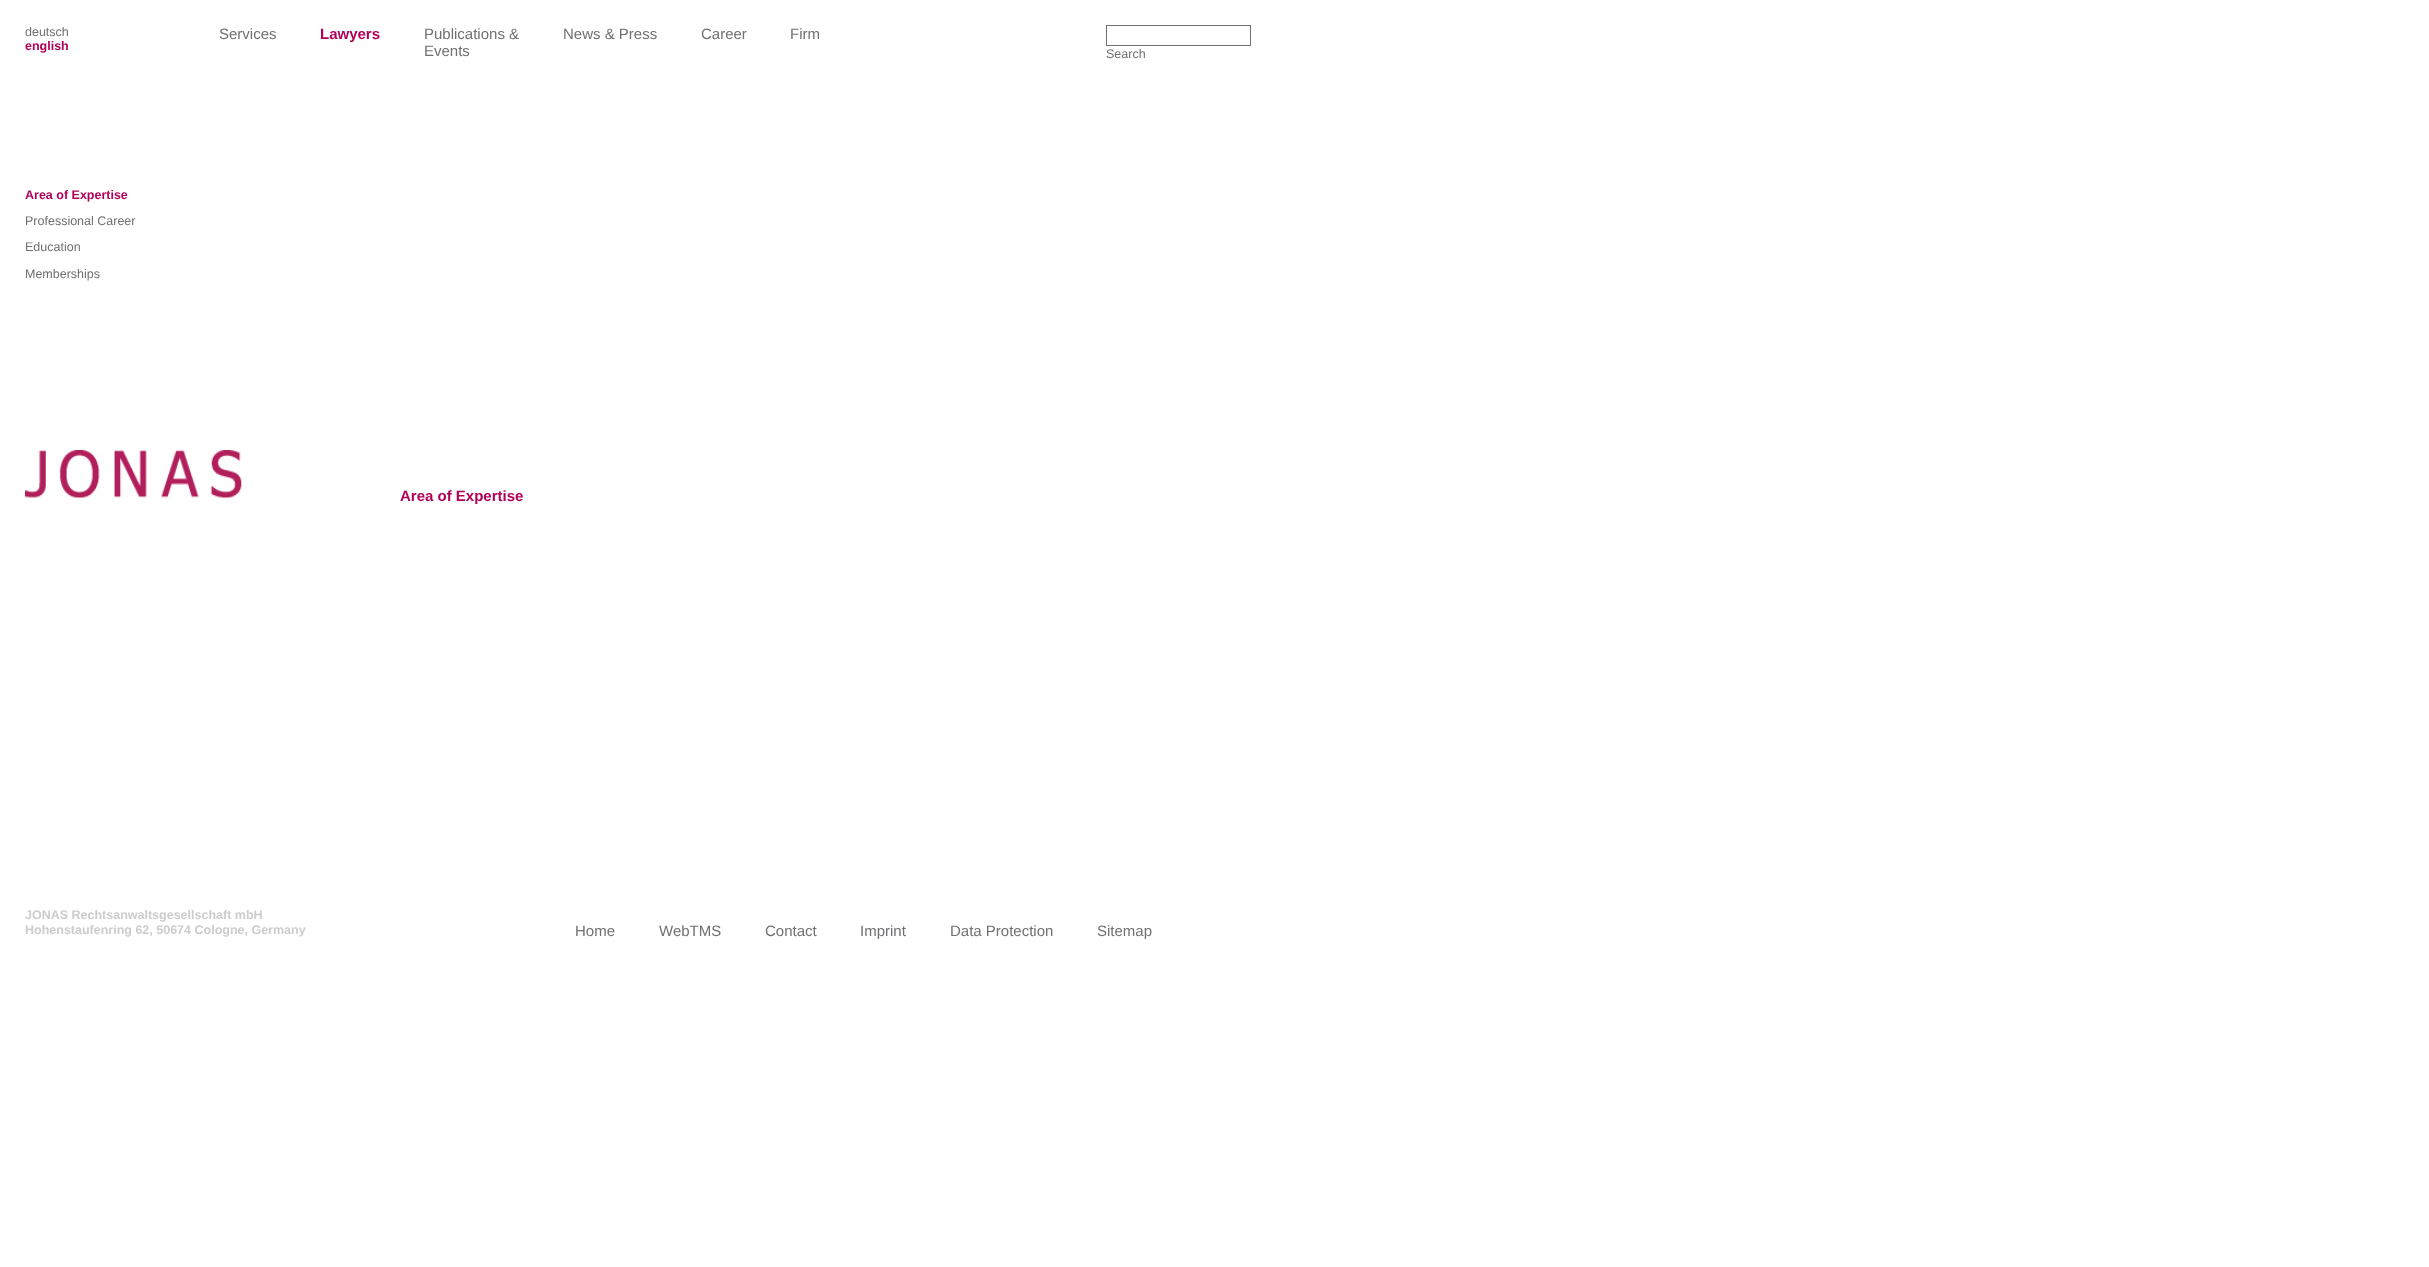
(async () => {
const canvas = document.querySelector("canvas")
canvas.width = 2429
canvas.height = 1267
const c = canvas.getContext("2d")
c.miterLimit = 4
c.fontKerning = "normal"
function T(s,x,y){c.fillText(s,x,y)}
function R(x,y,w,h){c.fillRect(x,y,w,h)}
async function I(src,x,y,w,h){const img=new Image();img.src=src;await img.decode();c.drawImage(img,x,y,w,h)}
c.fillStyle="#fff"
R(0,0,2429,1267)
c.font="12.5px Liberation Sans"
c.fillStyle="#707072"
T("deutsch",25,36)
c.font="bold 12.5px Liberation Sans"
c.fillStyle="#b00057"
T("english",25,50)
c.font="15px Liberation Sans"
c.fillStyle="#707072"
T("Services",219,39)
c.font="bold 15px Liberation Sans"
c.fillStyle="#b00057"
T("Lawyers",320,39)
c.font="15px Liberation Sans"
c.fillStyle="#707072"
T("Publications &",424,39)
T("Events",424,56)
T("News & Press",563,39)
T("Career",701,39)
T("Firm",790,39)
c.strokeStyle="#707072"
c.strokeRect(1106.5,25.5,144,20)
c.font="12.5px Liberation Sans"
T("Search",1106,58)
c.font="bold 12.5px Liberation Sans"
c.fillStyle="#b00057"
T("Area of Expertise",25,199)
c.font="12.5px Liberation Sans"
c.fillStyle="#707072"
T("Professional Career",25,225)
T("Education",25,251)
T("Memberships",25,278)
await I("1.png",25,450,217,48)
c.font="bold 15px Liberation Sans"
c.fillStyle="#b00057"
T("Area of Expertise",400,501)
c.font="bold 12.5px Liberation Sans"
c.fillStyle="#ccc"
T("JONAS Rechtsanwaltsgesellschaft mbH",25,919)
T("Hohenstaufenring 62, 50674 Cologne, Germany",25,934)
c.font="15px Liberation Sans"
c.fillStyle="#707072"
T("Home",575,936)
T("WebTMS",659,936)
T("Contact",765,936)
T("Imprint",860,936)
T("Data Protection",950,936)
T("Sitemap",1097,936)
})()
